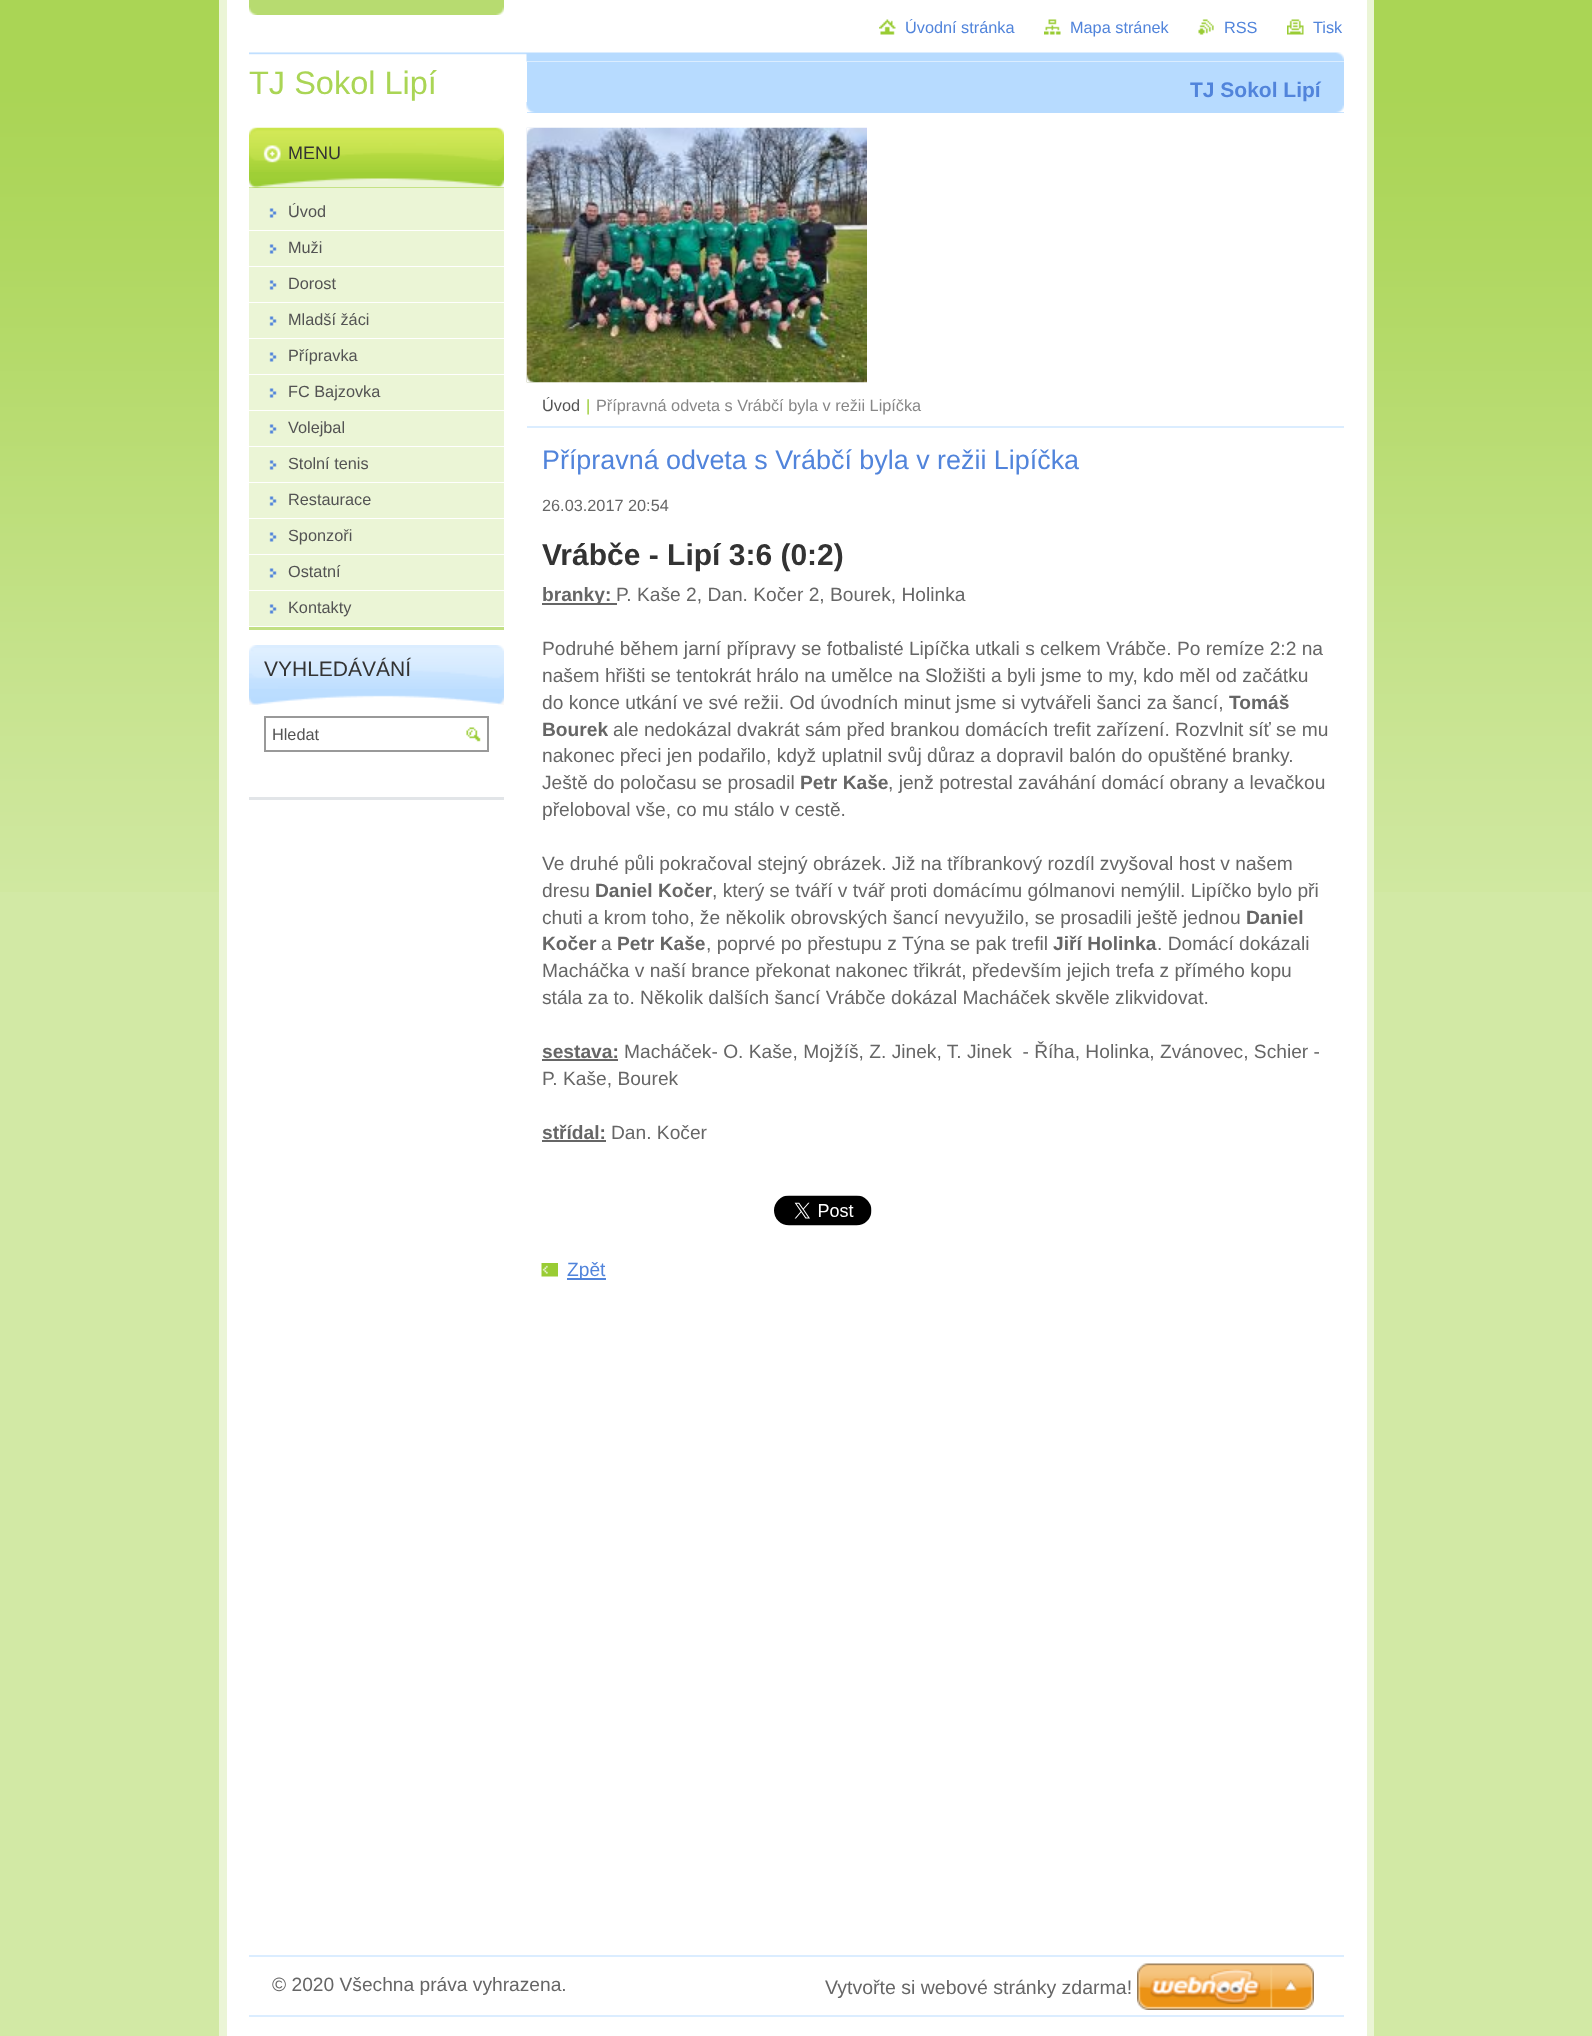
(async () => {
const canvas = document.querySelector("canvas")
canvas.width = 1592
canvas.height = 2036
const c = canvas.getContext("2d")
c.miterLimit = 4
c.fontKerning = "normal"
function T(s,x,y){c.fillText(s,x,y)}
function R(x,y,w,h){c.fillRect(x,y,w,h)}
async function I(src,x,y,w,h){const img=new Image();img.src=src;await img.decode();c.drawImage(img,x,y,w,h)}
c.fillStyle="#d2e9a5"
R(0,0,1592,2036)
await I("1.png",0,0,1592,892)
c.fillStyle="#fff"
R(227,0,1140,2036)
await I("2.png",249,0,255,15)
c.fillStyle="#ebf5d6"
R(1367,0,7,2036)
R(219,0,8,2036)
await I("3.png",879,19,17,16)
c.font="16.3px Liberation Sans"
c.fillStyle="#5184db"
T("Úvodní stránka",905,33)
await I("4.png",1044,19,17,16)
T("Mapa stránek",1070,33)
await I("5.png",1198,19,16,16)
T("RSS",1224,33)
await I("6.png",1287,19,17,16)
T("Tisk",1313,33)
await I("7.png",249,52,1095,10)
c.font="32.5px Liberation Sans"
c.fillStyle="#aad555"
T("TJ Sokol Lipí",249,94)
c.fillStyle="#b7dbff"
R(527,62,817,51)
await I("8.png",526,102,818,11)
c.font="bold 21px Liberation Sans"
c.fillStyle="#5184db"
T("TJ Sokol Lipí",1190,97)
c.fillStyle="#c2e084"
R(249,627,255,3)
c.fillStyle="#ebf5d6"
R(249,188,255,42)
c.fillStyle="#9fcf36"
R(249,172,255,16)
await I("9.png",249,127,255,45)
await I("10.png",249,178,255,10)
c.font="18px Liberation Sans"
c.fillStyle="#333"
T("MENU",288,159)
await I("11.png",269,208,8,10)
c.font="16.3px Liberation Sans"
c.fillStyle="#535353"
T("Úvod",288,217)
c.fillStyle="#ebf5d6"
R(249,231,255,35)
await I("11.png",269,244,8,10)
c.fillStyle="#535353"
T("Muži",288,253)
c.fillStyle="#ebf5d6"
R(249,267,255,35)
await I("11.png",269,280,8,10)
c.fillStyle="#535353"
T("Dorost",288,289)
c.fillStyle="#ebf5d6"
R(249,303,255,35)
await I("11.png",269,316,8,10)
c.fillStyle="#535353"
T("Mladší žáci",288,325)
c.fillStyle="#ebf5d6"
R(249,339,255,35)
await I("11.png",269,352,8,10)
c.fillStyle="#535353"
T("Přípravka",288,361)
c.fillStyle="#ebf5d6"
R(249,375,255,35)
await I("11.png",269,388,8,10)
c.fillStyle="#535353"
T("FC Bajzovka",288,397)
c.fillStyle="#ebf5d6"
R(249,411,255,35)
await I("11.png",269,424,8,10)
c.fillStyle="#535353"
T("Volejbal",288,433)
c.fillStyle="#ebf5d6"
R(249,447,255,35)
await I("11.png",269,460,8,10)
c.fillStyle="#535353"
T("Stolní tenis",288,469)
c.fillStyle="#ebf5d6"
R(249,483,255,35)
await I("11.png",269,496,8,10)
c.fillStyle="#535353"
T("Restaurace",288,505)
c.fillStyle="#ebf5d6"
R(249,519,255,35)
await I("11.png",269,532,8,10)
c.fillStyle="#535353"
T("Sponzoři",288,541)
c.fillStyle="#ebf5d6"
R(249,555,255,35)
await I("11.png",269,568,8,10)
c.fillStyle="#535353"
T("Ostatní",288,577)
c.fillStyle="#ebf5d6"
R(249,591,255,35)
await I("11.png",269,604,8,10)
c.fillStyle="#535353"
T("Kontakty",288,613)
c.fillStyle="#bdf"
R(249,689,255,8)
await I("12.png",249,645,255,44)
await I("13.png",249,695,255,10)
c.font="21px Liberation Sans"
c.fillStyle="#333"
T("VYHLEDÁVÁNÍ",264,676)
c.strokeStyle="#999"
c.lineWidth=2
c.strokeRect(265,717,223,34)
c.font="16.3px Liberation Sans"
c.fillStyle="#535353"
T("Hledat",272,740)
await I("14.png",466,727,15,15)
c.fillStyle="#e2e5e8"
R(249,797,255,3)
await I("15.png",526,127,341,256)
await I("16.png",526,127,9,256)
c.fillStyle="#dbedff"
R(527,426,817,2)
c.fillStyle="#535353"
T("Úvod",542,411)
c.fillStyle="#9c3"
T("|",586,411)
c.fillStyle="#878787"
T("Přípravná odveta s Vrábčí byla v režii Lipíčka",596,411)
c.font="26.9px Liberation Sans"
c.fillStyle="#5184db"
T("Přípravná odveta s Vrábčí byla v režii Lipíčka",542,469)
c.font="16.3px Liberation Sans"
c.fillStyle="#666"
T("26.03.2017 20:54",542,511)
c.font="bold 30px Liberation Sans"
c.fillStyle="#333"
T("Vrábče - Lipí 3:6 (0:2)",542,565)
c.fillStyle="#666"
R(542,603,75,2)
c.font="bold 19.2px Liberation Sans"
T("branky:",542,601)
c.font="19.2px Liberation Sans"
T("P. Kaše 2, Dan. Kočer 2, Bourek, Holinka",616,601)
T("Podruhé během jarní přípravy se fotbalisté Lipíčka utkali s celkem Vrábče. Po remíze 2:2 na",542,655)
T("našem hřišti se tentokrát hrálo na umělce na Složišti a byli jsme to my, kdo měl od začátku",542,682)
T("do konce utkání ve své režii. Od úvodních minut jsme si vytvářeli šanci za šancí,",542,709)
c.font="bold 19.2px Liberation Sans"
T("Tomáš",1229,709)
T("Bourek",542,736)
c.font="19.2px Liberation Sans"
T("ale nedokázal dvakrát sám před brankou domácích trefit zařízení. Rozvlnit síť se mu",613,736)
T("nakonec přeci jen podařilo, když uplatnil svůj důraz a dopravil balón do opuštěné branky.",542,762)
T("Ještě do poločasu se prosadil",542,789)
c.font="bold 19.2px Liberation Sans"
T("Petr Kaše",800,789)
c.font="19.2px Liberation Sans"
T(", jenž potrestal zaváhání domácí obrany a levačkou",888,789)
T("přeloboval vše, co mu stálo v cestě.",542,816)
T("Ve druhé půli pokračoval stejný obrázek. Již na tříbrankový rozdíl zvyšoval host v našem",542,870)
T("dresu",542,897)
c.font="bold 19.2px Liberation Sans"
T("Daniel Kočer",595,897)
c.font="19.2px Liberation Sans"
T(", který se tváří v tvář proti domácímu gólmanovi nemýlil. Lipíčko bylo při",712,897)
T("chuti a krom toho, že několik obrovských šancí nevyužilo, se prosadili ještě jednou",542,924)
c.font="bold 19.2px Liberation Sans"
T("Daniel",1246,924)
T("Kočer",542,950)
c.font="19.2px Liberation Sans"
T("a",601,950)
c.font="bold 19.2px Liberation Sans"
T("Petr Kaše",617,950)
c.font="19.2px Liberation Sans"
T(", poprvé po přestupu z Týna se pak trefil",706,950)
c.font="bold 19.2px Liberation Sans"
T("Jiří Holinka",1053,950)
c.font="19.2px Liberation Sans"
T(". Domácí dokázali",1157,950)
T("Macháčka v naší brance překonat nakonec třikrát, především jejich trefa z přímého kopu",542,977)
T("stála za to. Několik dalších šancí Vrábče dokázal Macháček skvěle zlikvidovat.",542,1004)
c.font="bold 19.2px Liberation Sans"
T("sestava:",542,1058)
R(542,1059,76,2)
c.font="19.2px Liberation Sans"
T("Macháček- O. Kaše, Mojžíš, Z. Jinek, T. Jinek  - Říha, Holinka, Zvánovec, Schier -",624,1058)
T("P. Kaše, Bourek",542,1085)
c.font="bold 19.2px Liberation Sans"
T("střídal:",542,1139)
R(542,1140,64,2)
c.font="19.2px Liberation Sans"
T("Dan. Kočer",611,1139)
await I("17.png",774,1195,98,31)
await I("18.png",541,1263,17,14)
c.fillStyle="#5184db"
R(567,1278,39,2)
T("Zpět",567,1276)
c.fillStyle="#dbedff"
R(249,1955,1095,2)
R(249,2015,1095,2)
c.fillStyle="#666"
T("© 2020 Všechna práva vyhrazena.",272,1991)
c.font="19.5px Liberation Sans"
T("Vytvořte si webové stránky zdarma!",825,1994)
await I("19.png",1137,1963,177,47)
})()
